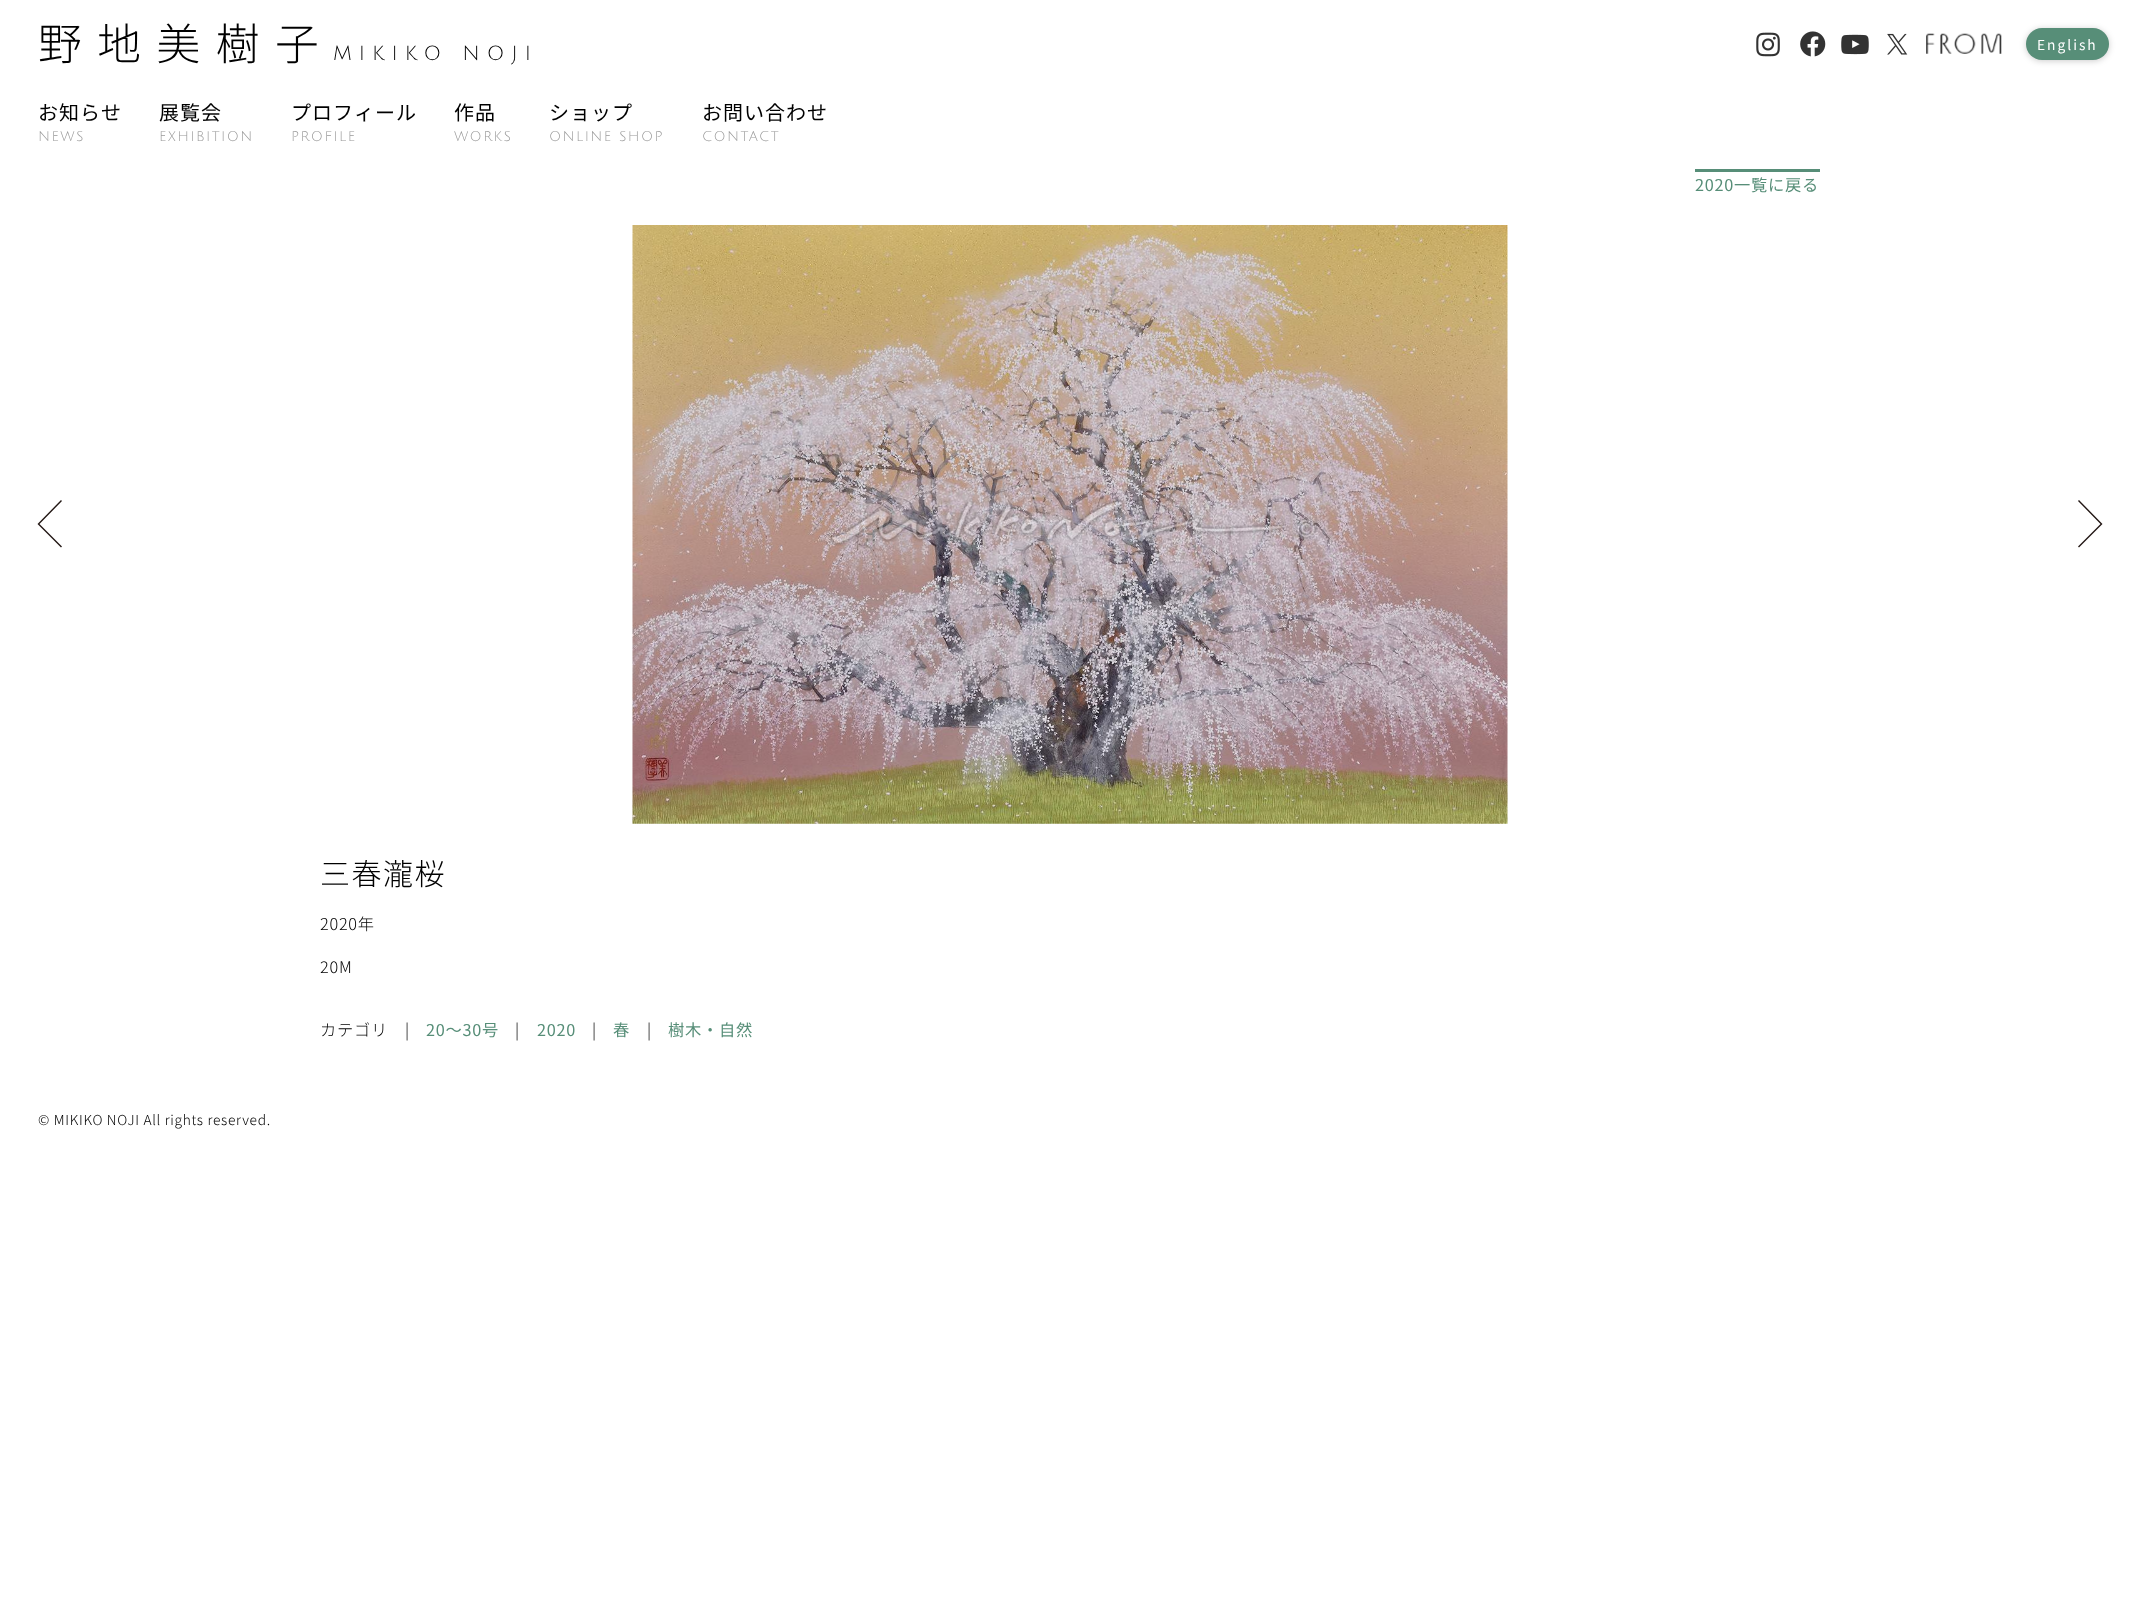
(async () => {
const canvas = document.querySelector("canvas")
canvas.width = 2140
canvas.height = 1622
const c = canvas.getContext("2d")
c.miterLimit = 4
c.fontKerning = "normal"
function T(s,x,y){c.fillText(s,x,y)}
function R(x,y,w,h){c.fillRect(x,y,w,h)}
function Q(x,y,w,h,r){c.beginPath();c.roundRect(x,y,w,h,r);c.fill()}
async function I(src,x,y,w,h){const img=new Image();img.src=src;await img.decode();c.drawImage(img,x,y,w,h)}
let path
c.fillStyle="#fff"
R(0,0,2140,1622)
c.letterSpacing="15.5px"
c.font="300 43.75px Noto Sans JP"
c.fillStyle="#000"
T("野地美樹子",38,60)
c.letterSpacing="7px"
c.font="20px Julius Sans One"
T("MIKIKO NOJI",333,60)
await I("1.png",1756,32,24,25)
await I("2.png",1800,31,26,26)
await I("3.png",1841,34,28,21)
await I("4.png",1887,33,21,22)
await I("5.png",1926,33,76,21)
c.fillStyle="#00000033"
c.filter="blur(3px)"
c.beginPath()
c.roundRect(2026,29,83,32,16)
c.fill()
c.filter="none"
c.fillStyle="#578e78"
Q(2026,28,83,32,16)
c.letterSpacing="2px"
c.font="13.75px Noto Sans JP"
c.fillStyle="#fff"
T("English",2037,50)
c.letterSpacing="1px"
c.font="20px Noto Sans JP"
c.fillStyle="#000"
T("お知らせ",38,120)
c.letterSpacing="1.4px"
c.font="13.75px Julius Sans One"
c.fillStyle="#999"
T("NEWS",38,141)
c.letterSpacing="1px"
c.font="20px Noto Sans JP"
c.fillStyle="#000"
T("展覧会",159,120)
c.letterSpacing="1.4px"
c.font="13.75px Julius Sans One"
c.fillStyle="#999"
T("EXHIBITION",159,141)
c.letterSpacing="1px"
c.font="20px Noto Sans JP"
c.fillStyle="#000"
T("プロフィール",291,120)
c.letterSpacing="1.4px"
c.font="13.75px Julius Sans One"
c.fillStyle="#999"
T("PROFILE",291,141)
c.letterSpacing="1px"
c.font="20px Noto Sans JP"
c.fillStyle="#000"
T("作品",454,120)
c.letterSpacing="1.4px"
c.font="13.75px Julius Sans One"
c.fillStyle="#999"
T("WORKS",454,141)
c.letterSpacing="1px"
c.font="20px Noto Sans JP"
c.fillStyle="#000"
T("ショップ",549,120)
c.letterSpacing="1.4px"
c.font="13.75px Julius Sans One"
c.fillStyle="#999"
T("ONLINE SHOP",549,141)
c.letterSpacing="1px"
c.font="20px Noto Sans JP"
c.fillStyle="#000"
T("お問い合わせ",702,120)
c.letterSpacing="1.4px"
c.font="13.75px Julius Sans One"
c.fillStyle="#999"
T("CONTACT",702,141)
c.fillStyle="#578e78"
R(1695,169,125,3)
c.letterSpacing="0.75px"
c.font="16.25px Noto Sans JP"
T("2020一覧に戻る",1695,191)
path = new Path2D("M61.5 500.5l-23 23.5l23 23")
c.strokeStyle="#231815"
c.lineWidth=1.4
c.stroke(path)
await I("6.png",632,225,876,599)
path = new Path2D("M2078.5 500.5l23 23.5l-23 23")
c.stroke(path)
c.letterSpacing="1.5px"
c.font="300 30px Noto Sans JP"
c.fillStyle="#000"
T("三春瀧桜",320,885)
c.letterSpacing="0.75px"
c.font="300 16.25px Noto Sans JP"
T("2020年",320,930)
T("20M",320,973)
T("カテゴリ",320,1036)
T("|",405,1036)
c.font="16.25px Noto Sans JP"
c.fillStyle="#578e78"
T("20〜30号",426,1036)
c.font="300 16.25px Noto Sans JP"
c.fillStyle="#000"
T("|",515,1036)
c.font="16.25px Noto Sans JP"
c.fillStyle="#578e78"
T("2020",537,1036)
c.font="300 16.25px Noto Sans JP"
c.fillStyle="#000"
T("|",592,1036)
c.font="16.25px Noto Sans JP"
c.fillStyle="#578e78"
T("春",613,1036)
c.font="300 16.25px Noto Sans JP"
c.fillStyle="#000"
T("|",647,1036)
c.font="16.25px Noto Sans JP"
c.fillStyle="#578e78"
T("樹木・自然",668,1036)
c.letterSpacing="0.7px"
c.font="300 13.75px Noto Sans JP"
c.fillStyle="#000"
T("© MIKIKO NOJI All rights reserved.",38,1125)
})()
